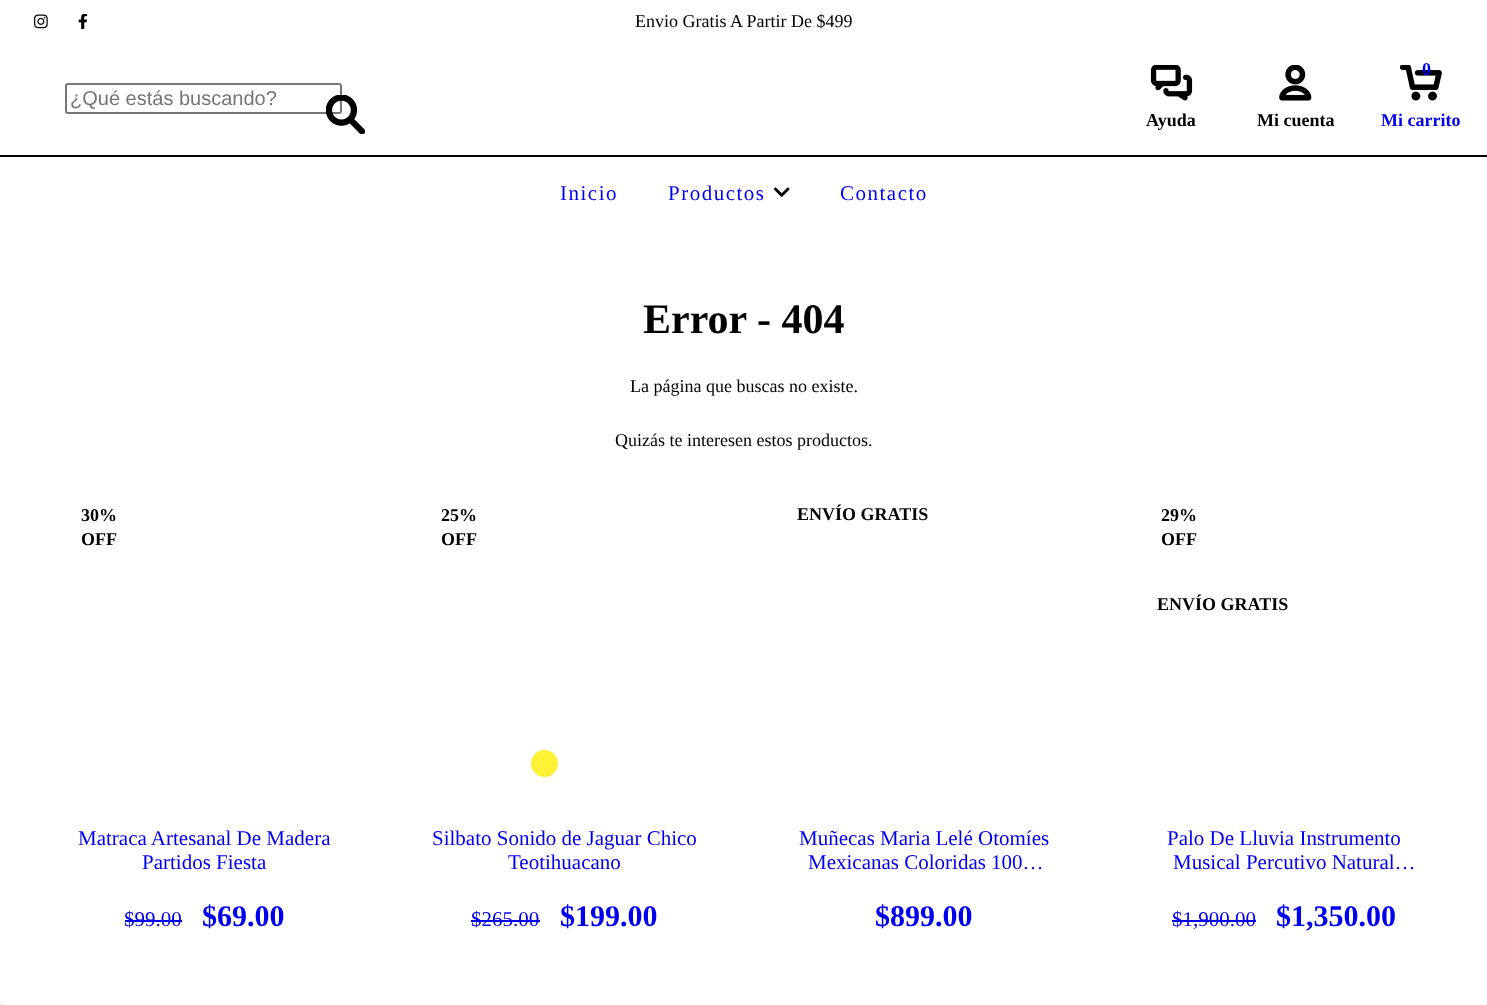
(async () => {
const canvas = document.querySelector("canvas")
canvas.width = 1487
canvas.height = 1005
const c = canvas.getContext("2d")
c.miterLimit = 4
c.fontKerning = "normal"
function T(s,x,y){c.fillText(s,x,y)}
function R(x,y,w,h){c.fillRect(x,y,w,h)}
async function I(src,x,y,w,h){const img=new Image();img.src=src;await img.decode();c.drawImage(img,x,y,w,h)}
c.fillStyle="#fff"
R(0,0,1487,1005)
await I("1.png",34,14,14,15)
await I("2.png",78,14,10,15)
c.font="18px Liberation Serif"
c.fillStyle="#000"
T("Envio Gratis A Partir De $499",635,27)
c.beginPath()
c.roundRect(66,84,275,29,2)
c.strokeStyle="#767676"
c.lineWidth=2
c.stroke()
c.font="20px Liberation Sans"
c.fillStyle="#757575"
T("¿Qué estás buscando?",70,105)
await I("3.png",326,95,39,39)
await I("4.png",1150,65,43,36)
c.font="bold 18px Liberation Serif"
c.fillStyle="#000"
T("Ayuda",1146,126)
await I("5.png",1279,65,33,36)
T("Mi cuenta",1257,126)
await I("6.png",1400,65,42,36)
c.fillStyle="#00e"
T("0",1422,75)
T("Mi carrito",1381,126)
c.fillStyle="#000"
R(0,155,1487,2)
c.letterSpacing="1.5px"
c.font="21px Liberation Serif"
c.fillStyle="#00e"
T("Inicio",560,200)
T("Productos",668,200)
await I("7.png",773,187,17,10)
T("Contacto",840,200)
c.letterSpacing="0px"
c.font="bold 42px Liberation Serif"
c.fillStyle="#000"
T("Error - 404",643,333)
c.font="18px Liberation Serif"
T("La página que buscas no existe.",630,392)
T("Quizás te interesen estos productos.",615,446)
c.font="bold 18px Liberation Serif"
T("30%",81,521)
T("OFF",81,545)
c.font="21px Liberation Serif"
c.fillStyle="#00e"
T("Matraca Artesanal De Madera",78,845)
T("Partidos Fiesta",142,869)
T("$99.00",124,926)
R(125,920,57,2)
c.font="bold 30px Liberation Serif"
T("$69.00",202,926)
c.font="bold 18px Liberation Serif"
c.fillStyle="#000"
T("25%",441,521)
T("OFF",441,545)
c.fillStyle="#fff135"
c.beginPath()
c.arc(544.5,763.5,13.5,0,7)
c.fill()
c.font="21px Liberation Serif"
c.fillStyle="#00e"
T("Silbato Sonido de Jaguar Chico",432,845)
T("Teotihuacano",508,869)
T("$265.00",471,926)
R(471,920,69,2)
c.font="bold 30px Liberation Serif"
T("$199.00",560,926)
c.font="bold 18px Liberation Serif"
c.fillStyle="#000"
T("ENVÍO GRATIS",797,520)
c.font="21px Liberation Serif"
c.fillStyle="#00e"
T("Muñecas Maria Lelé Otomíes",799,845)
T("Mexicanas Coloridas 100…",808,869)
c.font="bold 30px Liberation Serif"
T("$899.00",875,926)
c.font="bold 18px Liberation Serif"
c.fillStyle="#000"
T("29%",1161,521)
T("OFF",1161,545)
T("ENVÍO GRATIS",1157,610)
c.font="21px Liberation Serif"
c.fillStyle="#00e"
T("Palo De Lluvia Instrumento",1167,845)
T("Musical Percutivo Natural…",1173,869)
T("$1,900.00",1172,926)
R(1172,920,84,2)
c.font="bold 30px Liberation Serif"
T("$1,350.00",1276,926)
c.fillStyle="#f5f5f5"
R(0,1002,3,3)
})()
